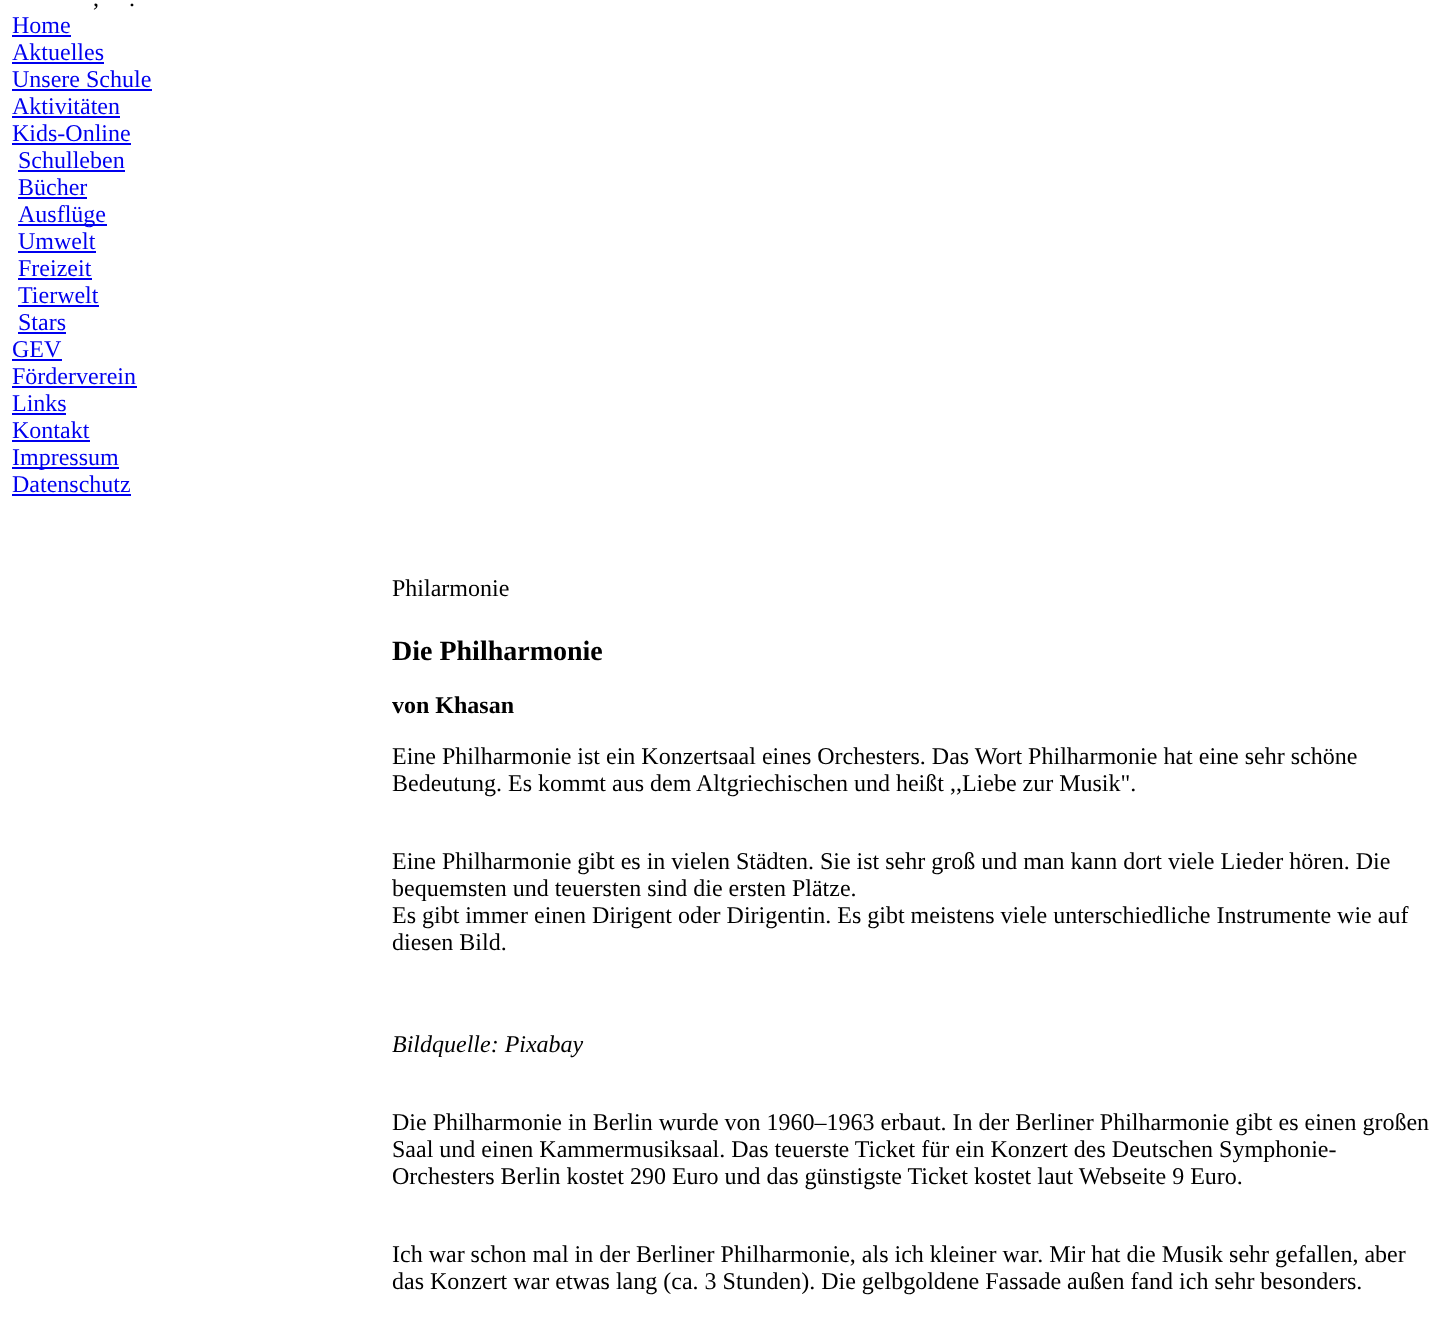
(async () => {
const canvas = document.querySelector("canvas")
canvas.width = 1450
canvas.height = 1319
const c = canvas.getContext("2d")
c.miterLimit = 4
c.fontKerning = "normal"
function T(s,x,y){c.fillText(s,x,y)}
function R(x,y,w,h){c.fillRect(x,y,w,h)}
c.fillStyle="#fff"
R(0,0,1450,1319)
c.font="24px Liberation Serif"
c.fillStyle="#000"
T(",",93,6)
T(".",129,6)
c.fillStyle="#00e"
T("Home",12,33)
R(12,35,59,2)
T("Aktuelles",12,60)
R(12,62,92,2)
T("Unsere Schule",12,87)
R(12,89,140,2)
T("Aktivitäten",12,114)
R(12,116,108,2)
T("Kids-Online",12,141)
R(12,143,119,2)
T("Schulleben",18,168)
R(18,170,107,2)
T("Bücher",18,195)
R(18,197,69,2)
R(18,224,89,2)
T("Ausflüge",18,222)
T("Umwelt",18,249)
R(18,251,78,2)
T("Freizeit",18,276)
R(18,278,74,2)
T("Tierwelt",18,303)
R(18,305,81,2)
T("Stars",18,330)
R(18,332,48,2)
T("GEV",12,357)
R(12,359,50,2)
T("Förderverein",12,384)
R(12,386,125,2)
T("Links",12,411)
R(12,413,54,2)
T("Kontakt",12,438)
R(12,440,78,2)
R(12,467,107,2)
T("Impressum",12,465)
T("Datenschutz",12,492)
R(12,494,119,2)
c.fillStyle="#000"
T("Philarmonie",392,596)
c.font="bold 28px Liberation Serif"
T("Die Philharmonie",392,660)
c.font="bold 24px Liberation Serif"
T("von Khasan",392,713)
c.font="24px Liberation Serif"
T("Eine Philharmonie ist ein Konzertsaal eines Orchesters. Das Wort Philharmonie hat eine sehr schöne",392,764)
T("Bedeutung. Es kommt aus dem Altgriechischen und heißt ,,Liebe zur Musik\".",392,791)
T("Eine Philharmonie gibt es in vielen Städten. Sie ist sehr groß und man kann dort viele Lieder hören. Die",392,869)
T("bequemsten und teuersten sind die ersten Plätze.",392,896)
T("Es gibt immer einen Dirigent oder Dirigentin. Es gibt meistens viele unterschiedliche Instrumente wie auf",392,923)
T("diesen Bild.",392,950)
c.font="italic 24px Liberation Serif"
T("Bildquelle: Pixabay",392,1052)
c.font="24px Liberation Serif"
T("Die Philharmonie in Berlin wurde von 1960–1963 erbaut. In der Berliner Philharmonie gibt es einen großen",392,1130)
T("Saal und einen Kammermusiksaal. Das teuerste Ticket für ein Konzert des Deutschen Symphonie-",392,1157)
T("Orchesters Berlin kostet 290 Euro und das günstigste Ticket kostet laut Webseite 9 Euro.",392,1184)
T("Ich war schon mal in der Berliner Philharmonie, als ich kleiner war. Mir hat die Musik sehr gefallen, aber",392,1262)
T("das Konzert war etwas lang (ca. 3 Stunden). Die gelbgoldene Fassade außen fand ich sehr besonders.",392,1289)
})()
